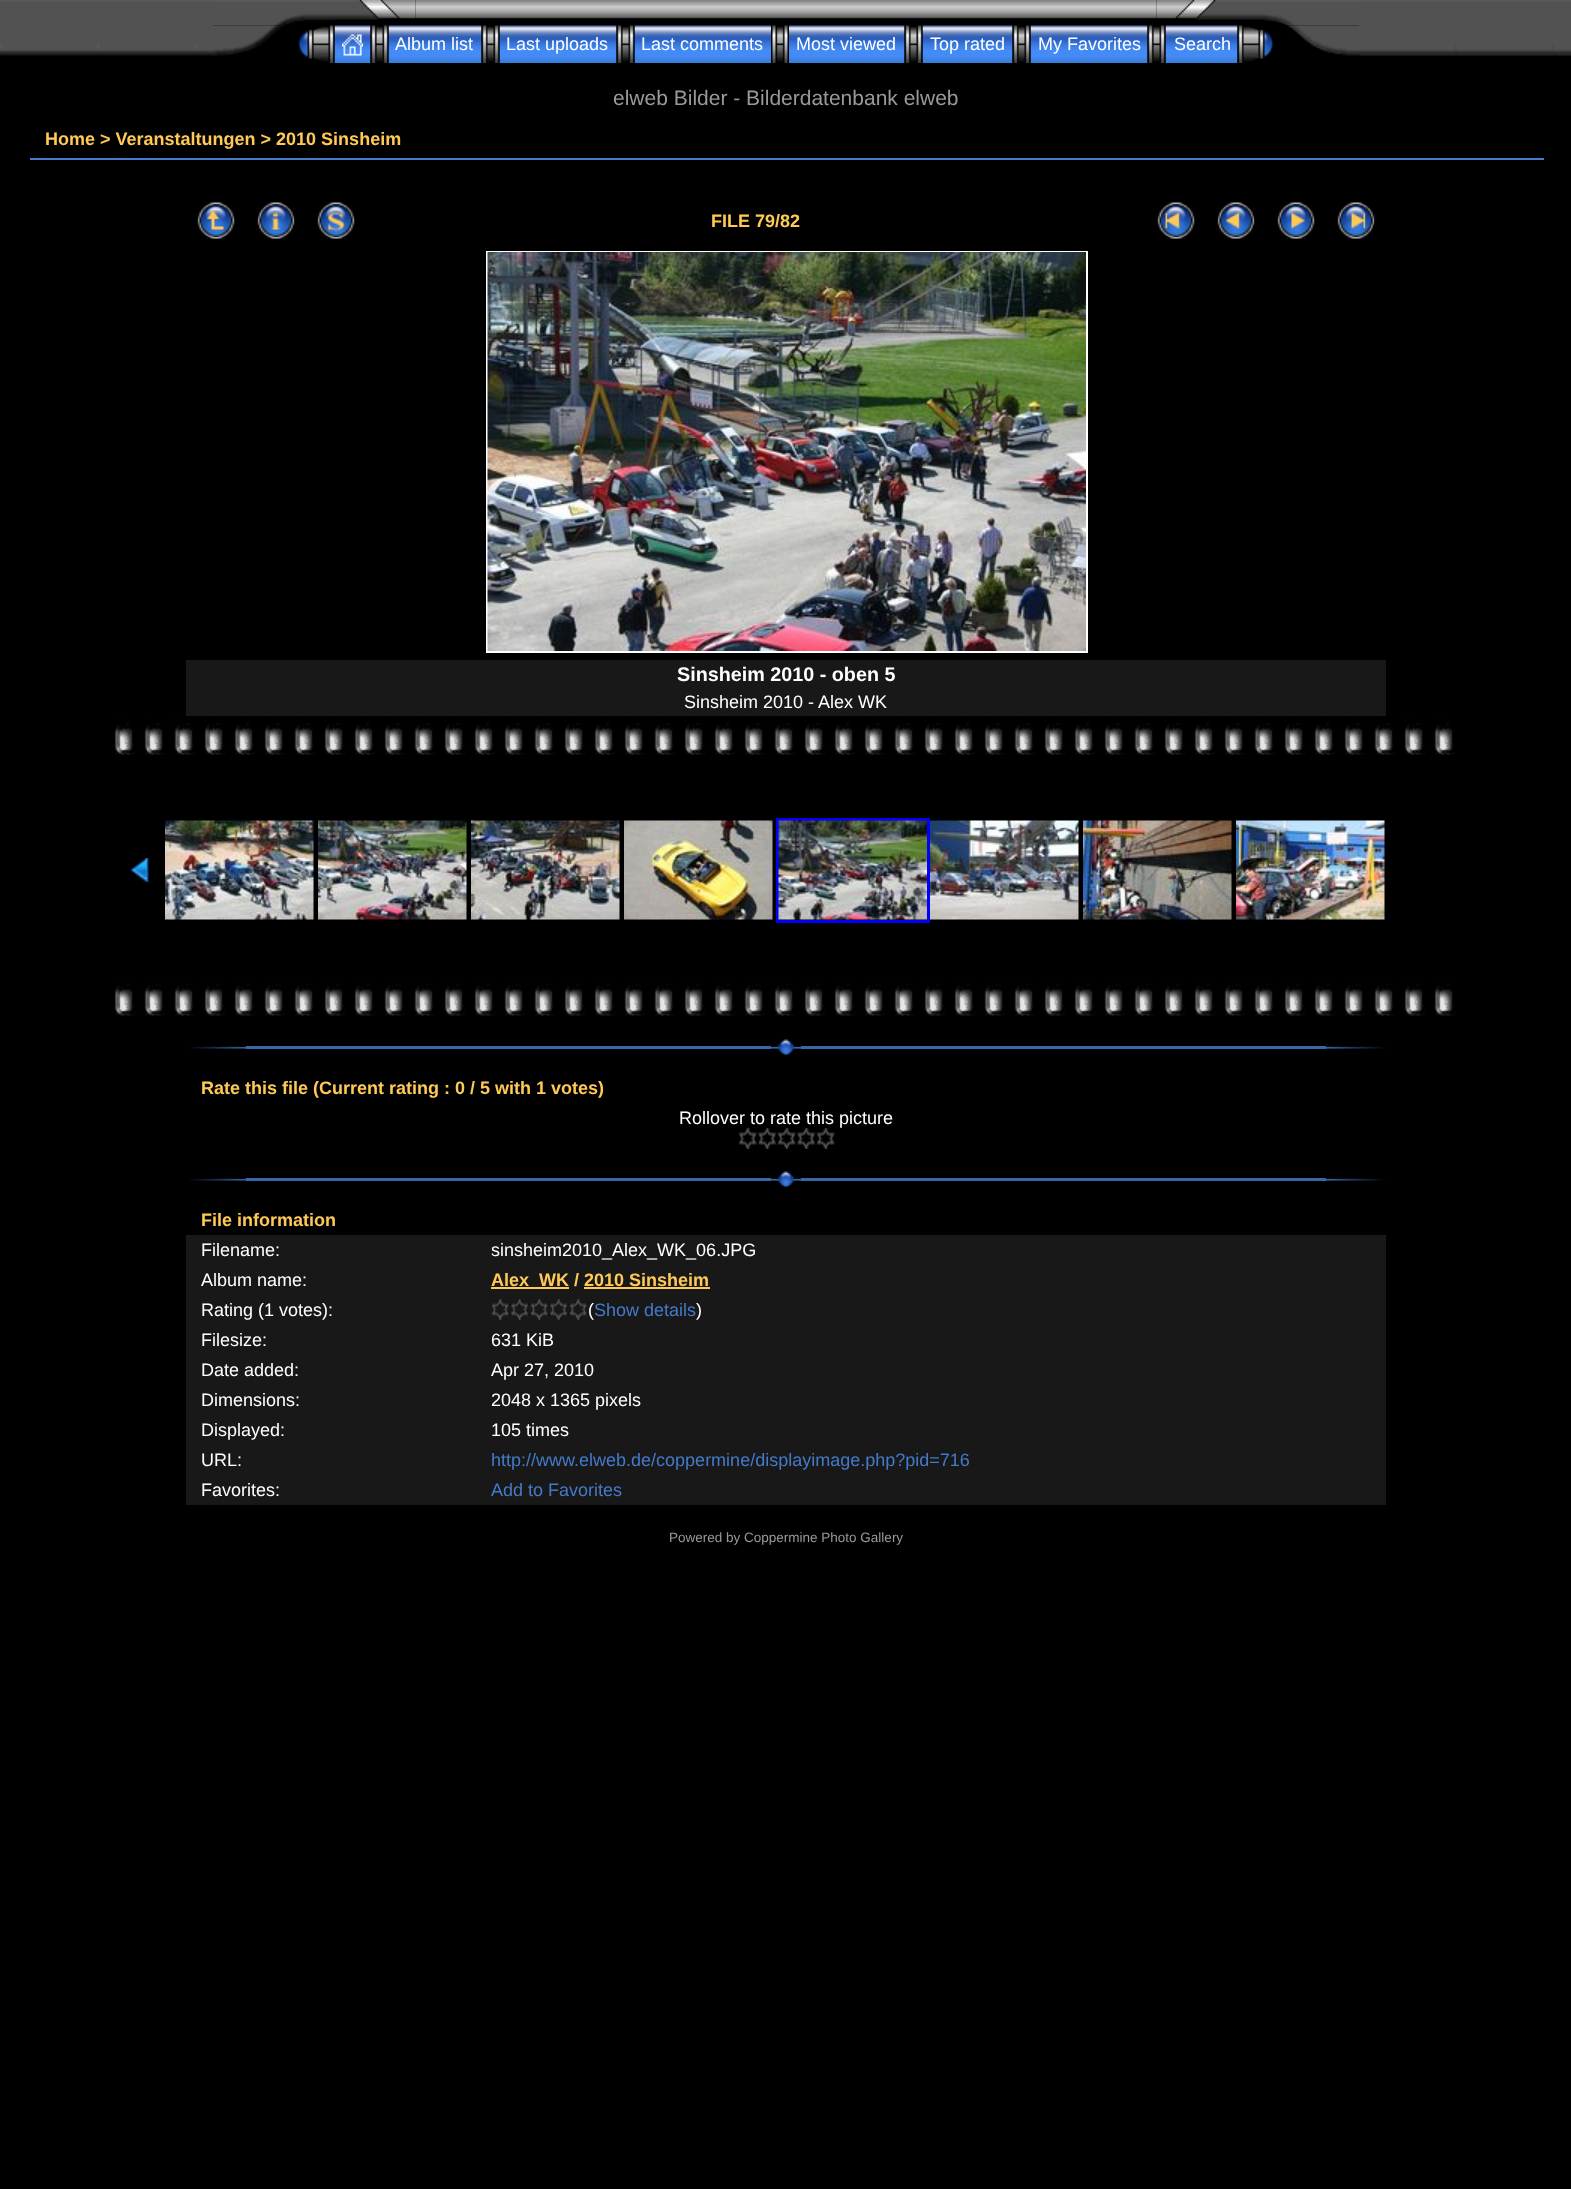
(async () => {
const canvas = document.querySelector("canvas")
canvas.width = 1571
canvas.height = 2189
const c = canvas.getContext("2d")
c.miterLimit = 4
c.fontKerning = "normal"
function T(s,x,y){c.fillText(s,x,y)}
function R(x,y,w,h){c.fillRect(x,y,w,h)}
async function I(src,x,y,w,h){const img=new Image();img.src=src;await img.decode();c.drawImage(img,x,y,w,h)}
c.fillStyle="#000"
R(0,0,1571,2189)
await I("1.png",0,0,213,56)
await I("2.png",213,0,203,26)
await I("3.png",415,0,742,19)
await I("4.png",1156,0,203,26)
await I("5.png",213,25,71,31)
await I("7.png",334,25,37,38)
await I("6.png",298,25,37,38)
await I("8.png",342,34,21,22)
await I("10.png",388,25,94,38)
await I("9.png",370,25,19,38)
c.font="18px Liberation Sans"
c.fillStyle="#fff"
T("Album list",395,50)
await I("12.png",499,25,118,38)
await I("11.png",481,25,19,38)
T("Last uploads",506,50)
await I("13.png",634,25,137,38)
await I("9.png",616,25,19,38)
T("Last comments",641,50)
await I("14.png",772,25,16,38)
await I("15.png",789,25,116,38)
T("Most viewed",796,50)
await I("16.png",922,25,91,38)
await I("11.png",904,25,19,38)
T("Top rated",930,50)
await I("12.png",1030,25,118,38)
await I("11.png",1012,25,19,38)
T("My Favorites",1038,50)
await I("17.png",1165,25,73,38)
await I("9.png",1147,25,19,38)
T("Search",1174,50)
await I("18.png",1237,25,39,38)
await I("19.png",1286,25,73,31)
await I("20.png",1359,0,212,56)
c.font="21px Liberation Sans"
c.fillStyle="#999"
T("elweb Bilder - Bilderdatenbank elweb",613,105)
c.fillStyle="#447ac9"
R(30,158,1514,2)
c.font="bold 18px Liberation Sans"
c.fillStyle="#ffc956"
T("Home > Veranstaltungen > 2010 Sinsheim",45,145)
await I("21.png",197,202,38,37)
await I("22.png",257,202,38,37)
await I("23.png",317,202,38,37)
T("FILE 79/82",711,227)
await I("24.png",1157,202,38,37)
await I("25.png",1217,202,38,37)
await I("26.png",1277,202,38,37)
await I("27.png",1337,202,38,37)
c.strokeStyle="#fff"
c.lineWidth=2
c.strokeRect(487,252,600,400)
await I("28.png",487,252,599,399)
c.fillStyle="#181818"
R(186,660,1200,56)
c.font="bold 19.75px Liberation Sans"
c.fillStyle="#fff"
T("Sinsheim 2010 - oben 5",677,681)
c.font="18px Liberation Sans"
T("Sinsheim 2010 - Alex WK",684,708)
await I("29.png",114,719,1341,36)
await I("30.png",119,736,8,14)
await I("31.png",130,858,19,24)
await I("32.png",165,820,149,100)
await I("33.png",318,820,149,100)
await I("34.png",471,820,149,100)
await I("35.png",624,820,149,100)
c.strokeStyle="#00f"
c.lineWidth=3
c.strokeRect(777.5,819.5,151,102)
await I("36.png",778,820,149,100)
await I("37.png",930,820,149,100)
await I("38.png",1083,820,149,100)
await I("39.png",1236,820,149,100)
await I("40.png",114,980,1341,36)
await I("30.png",119,997,8,14)
await I("41.png",189,1046,57,3)
c.fillStyle="#3966a8"
R(246,1046,1080,3)
await I("42.png",771,1039,30,16)
await I("43.png",1326,1046,60,3)
c.font="bold 18px Liberation Sans"
c.fillStyle="#ffc956"
T("Rate this file (Current rating : 0 / 5 with 1 votes)",201,1094)
c.font="18px Liberation Sans"
c.fillStyle="#fff"
T("Rollover to rate this picture",679,1124)
await I("44.png",738,1128,20,21)
await I("45.png",757,1128,20,21)
await I("46.png",777,1128,20,21)
await I("47.png",796,1128,20,21)
await I("46.png",816,1128,20,21)
await I("41.png",189,1178,57,3)
c.fillStyle="#3966a7"
R(246,1178,1080,3)
await I("42.png",771,1171,30,16)
await I("43.png",1326,1178,60,3)
c.font="bold 18px Liberation Sans"
c.fillStyle="#ffc956"
T("File information",201,1226)
c.fillStyle="#181818"
R(186,1235,1200,30)
c.font="18px Liberation Sans"
c.fillStyle="#fff"
T("Filename:",201,1256)
T("sinsheim2010_Alex_WK_06.JPG",491,1256)
c.fillStyle="#181818"
R(186,1265,1200,30)
c.fillStyle="#fff"
T("Album name:",201,1286)
c.fillStyle="#ffc956"
R(491,1287,78,2)
c.font="bold 18px Liberation Sans"
T("Alex_WK / 2010 Sinsheim",491,1286)
R(584,1287,126,2)
c.fillStyle="#181818"
R(186,1295,1200,30)
c.font="18px Liberation Sans"
c.fillStyle="#fff"
T("Rating (1 votes):",201,1316)
await I("48.png",491,1299,19,21)
await I("49.png",510,1299,20,21)
await I("50.png",530,1299,19,21)
await I("49.png",549,1299,20,21)
await I("50.png",569,1299,19,21)
T("(",588,1316)
c.fillStyle="#447ac9"
T("Show details",594,1316)
c.fillStyle="#fff"
T(")",696,1316)
c.fillStyle="#181818"
R(186,1325,1200,30)
c.fillStyle="#fff"
T("Filesize:",201,1346)
T("631 KiB",491,1346)
c.fillStyle="#181818"
R(186,1355,1200,30)
c.fillStyle="#fff"
T("Date added:",201,1376)
T("Apr 27, 2010",491,1376)
c.fillStyle="#181818"
R(186,1385,1200,30)
c.fillStyle="#fff"
T("Dimensions:",201,1406)
T("2048 x 1365 pixels",491,1406)
c.fillStyle="#181818"
R(186,1415,1200,30)
c.fillStyle="#fff"
T("Displayed:",201,1436)
T("105 times",491,1436)
c.fillStyle="#181818"
R(186,1445,1200,30)
c.fillStyle="#fff"
T("URL:",201,1466)
c.fillStyle="#447ac9"
T("http://www.elweb.de/coppermine/displayimage.php?pid=716",491,1466)
c.fillStyle="#181818"
R(186,1475,1200,30)
c.fillStyle="#fff"
T("Favorites:",201,1496)
c.fillStyle="#447ac9"
T("Add to Favorites",491,1496)
c.font="13.5px Liberation Sans"
c.fillStyle="#999"
T("Powered by Coppermine Photo Gallery",669,1542)
})()
